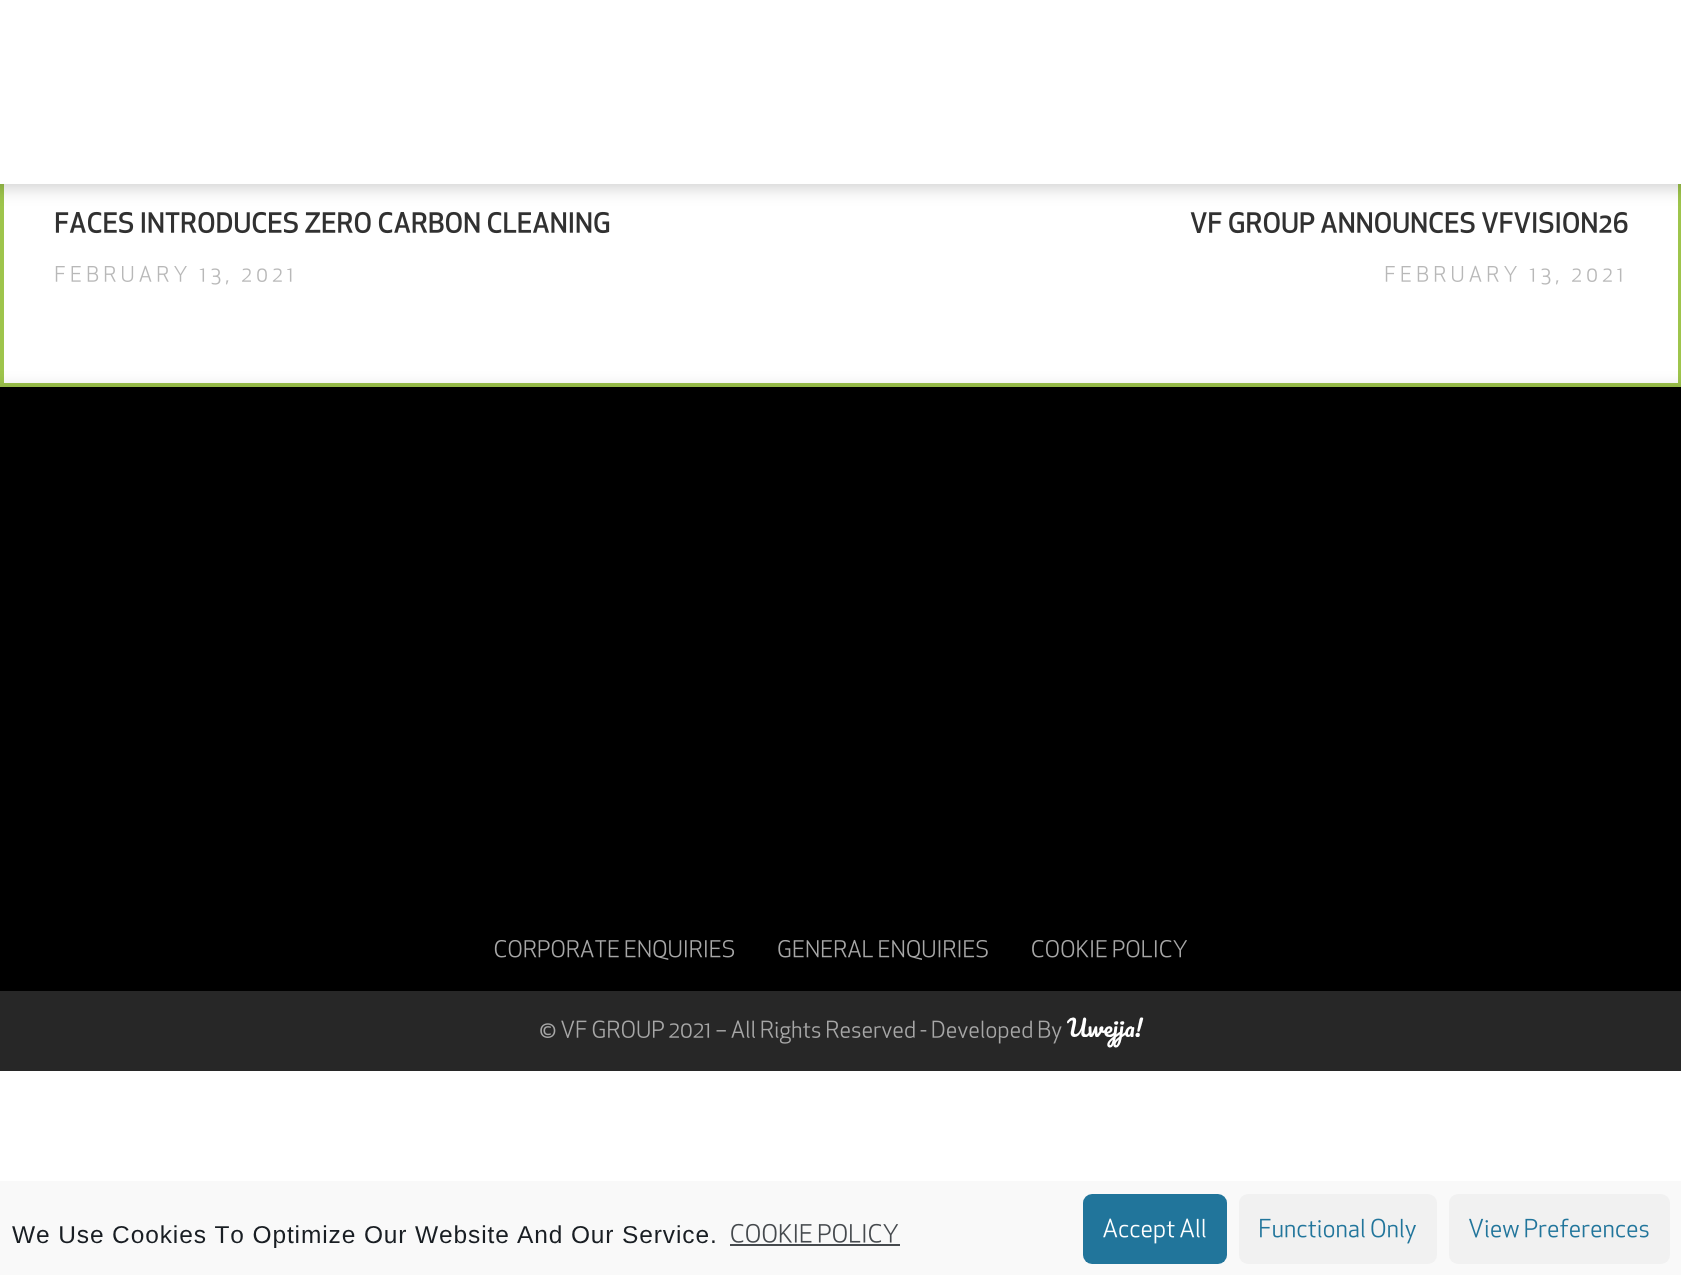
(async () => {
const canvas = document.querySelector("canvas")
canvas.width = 1681
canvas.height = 1275
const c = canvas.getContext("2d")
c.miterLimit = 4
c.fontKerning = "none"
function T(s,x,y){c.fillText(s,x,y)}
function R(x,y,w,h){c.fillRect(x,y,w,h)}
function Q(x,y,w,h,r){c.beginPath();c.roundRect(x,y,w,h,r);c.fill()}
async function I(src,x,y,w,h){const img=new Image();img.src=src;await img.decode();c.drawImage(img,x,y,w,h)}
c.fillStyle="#fff"
R(0,0,1681,1275)
c.strokeStyle="#9ec54c"
c.lineWidth=4
c.strokeRect(2,168,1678,217)
await I("1.png",55,211,555,23)
await I("3.png",1190,211,438,23)
c.fillStyle="#00000033"
c.filter="blur(9px)"
c.beginPath()
c.rect(-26,4,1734,183)
c.fill()
c.filter="none"
c.fillStyle="#fff"
R(0,0,1681,184)
await I("2.png",55,265,237,20)
await I("2.png",1385,265,237,20)
c.fillStyle="#00000033"
c.filter="blur(9px)"
c.beginPath()
c.rect(-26,390,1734,604)
c.fill()
c.filter="none"
c.fillStyle="#000"
R(0,387,1681,604)
await I("4.png",494,939,241,21)
await I("5.png",778,939,210,21)
await I("6.png",1032,940,155,18)
c.fillStyle="#272727"
R(0,991,1681,80)
await I("7.png",540,1020,522,24)
c.font="23px Pacifico"
c.fillStyle="#fff"
T("Uwejja!",1067,1037)
c.fillStyle="#f9f9f9"
R(0,1181,1681,94)
c.letterSpacing="0.88px"
c.font="24.5px Liberation Sans"
c.fillStyle="#191e23"
T("We Use Cookies To Optimize Our Website",12,1243)
T("And Our Service.",517,1243)
await I("8.png",731,1223,168,20)
c.fillStyle="#464a4e"
R(730,1244,170,2)
c.fillStyle="#21759b"
Q(1083,1194,144,70,9)
await I("9.png",1103,1218,103,26)
c.fillStyle="#f1f1f1"
Q(1239,1194,198,70,9)
await I("10.png",1260,1218,156,26)
Q(1449,1194,221,70,9)
await I("11.png",1469,1218,180,20)
})()
